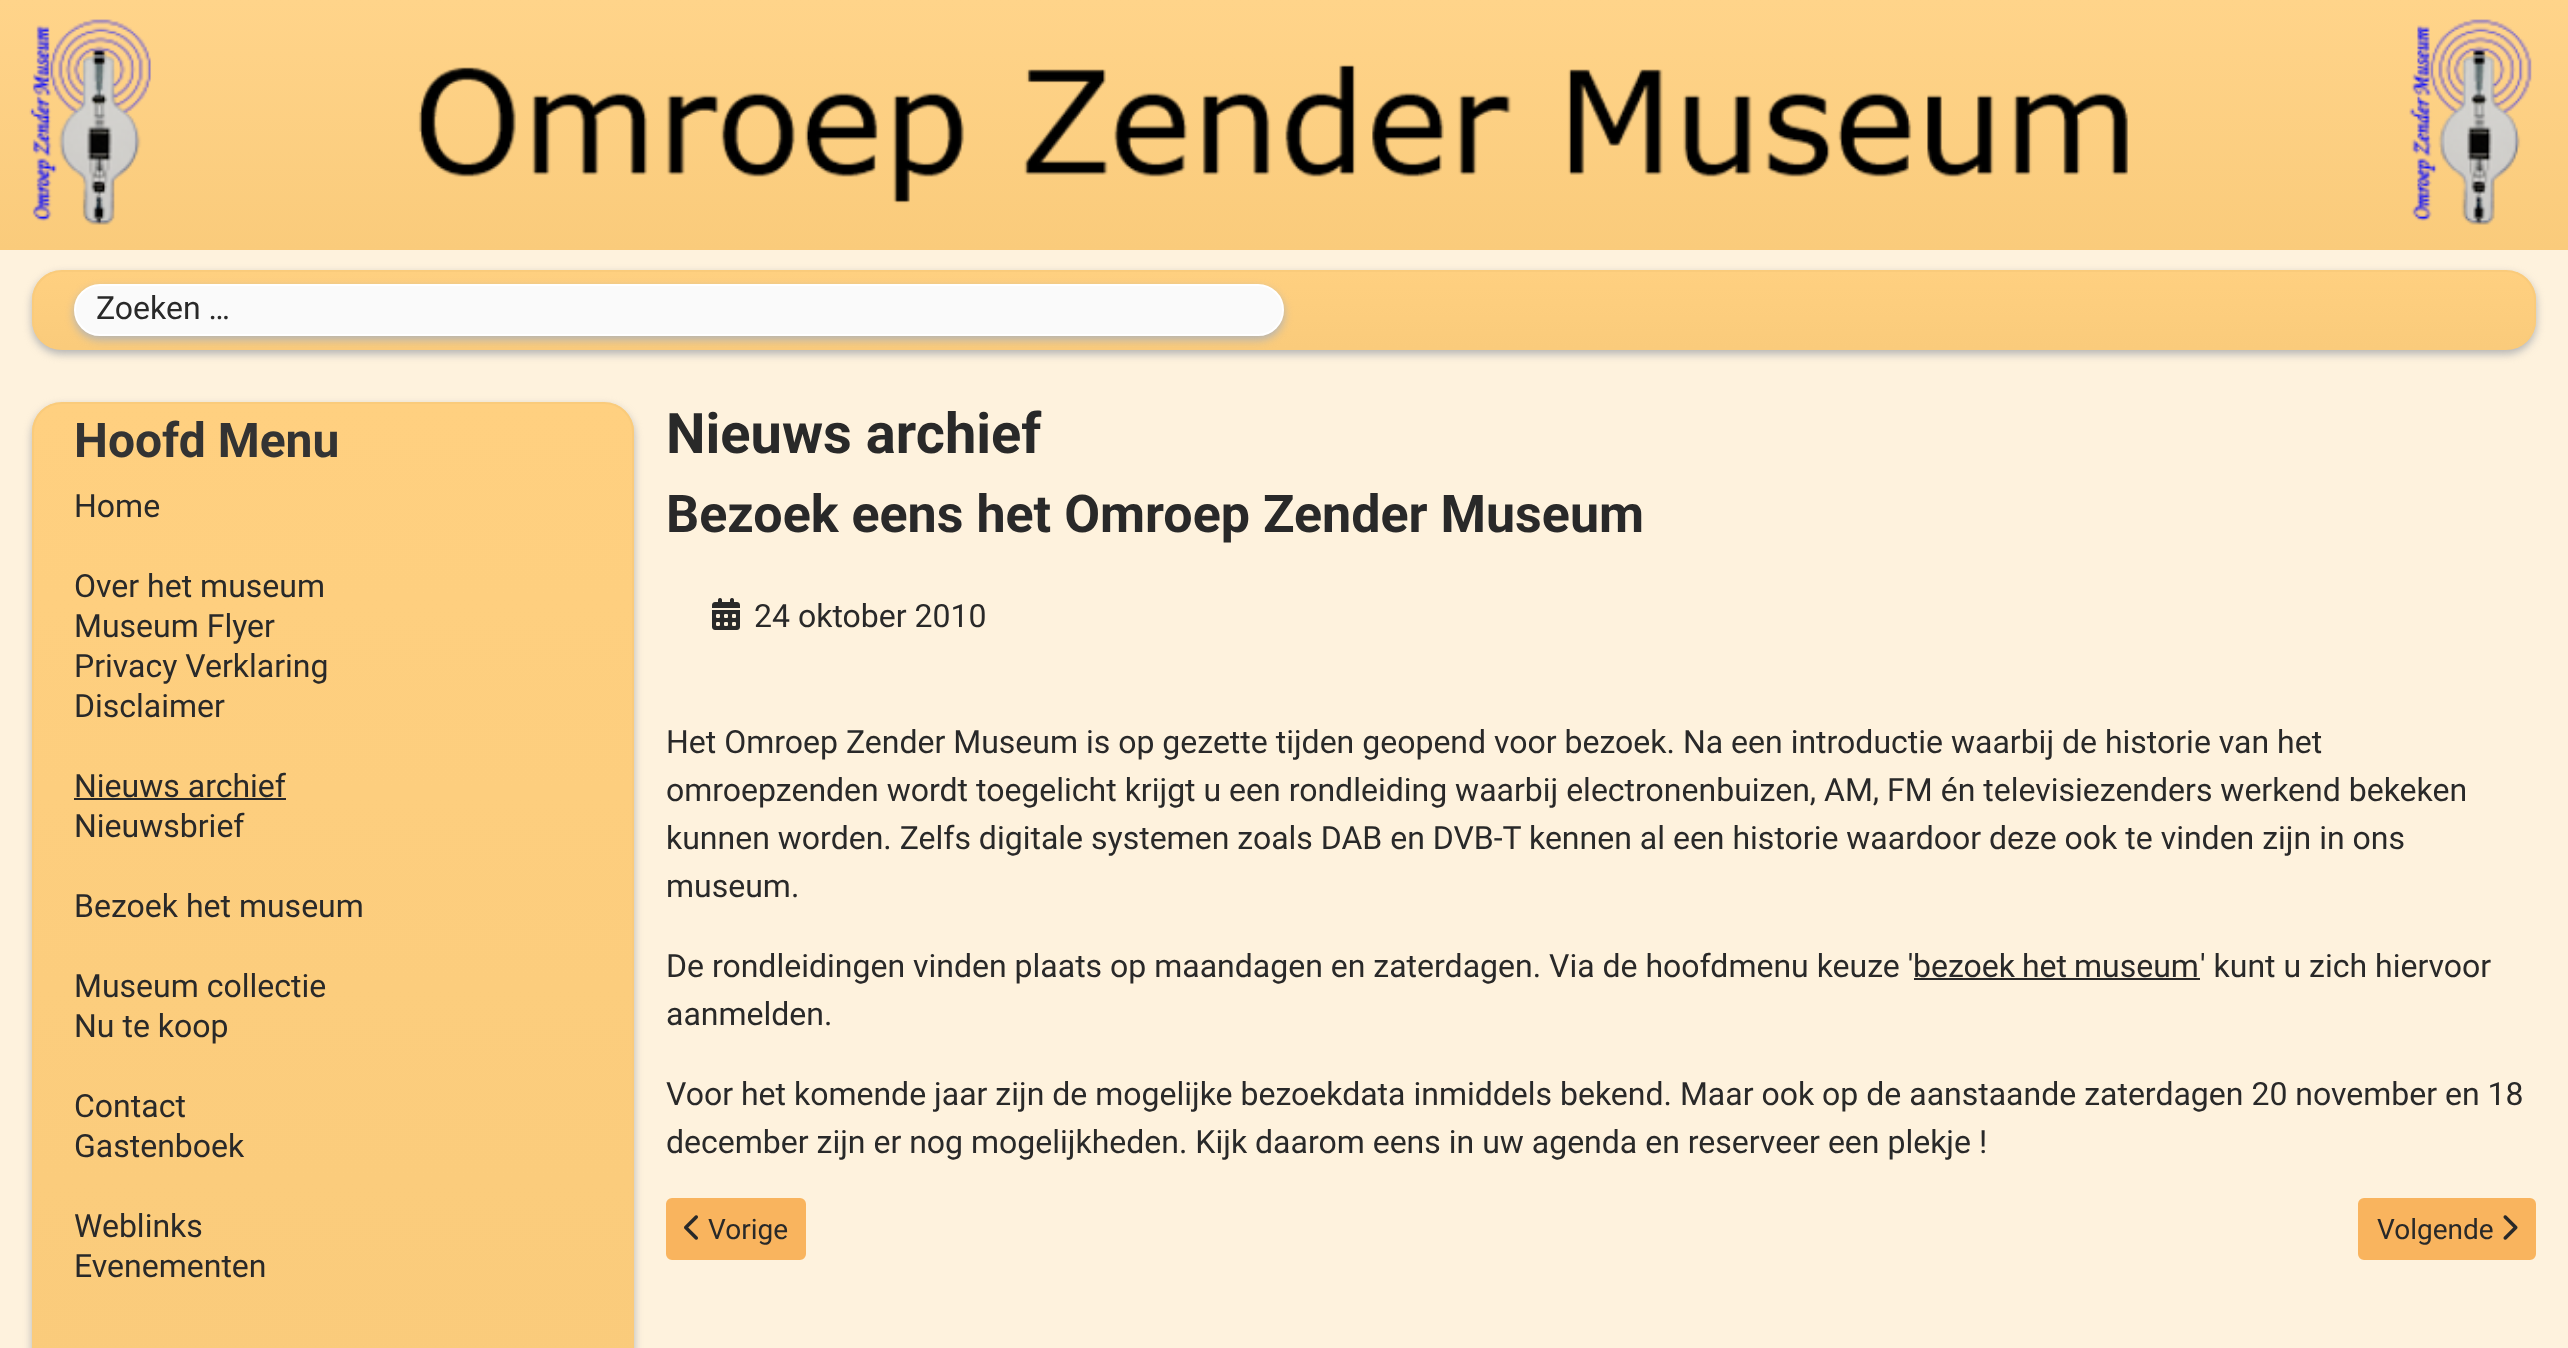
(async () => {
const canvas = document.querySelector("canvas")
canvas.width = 2568
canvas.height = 1348
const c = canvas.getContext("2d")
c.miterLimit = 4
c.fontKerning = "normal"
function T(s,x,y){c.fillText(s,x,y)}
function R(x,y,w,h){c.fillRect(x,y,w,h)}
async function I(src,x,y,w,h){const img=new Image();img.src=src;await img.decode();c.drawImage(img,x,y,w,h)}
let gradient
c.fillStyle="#fef2dd"
R(0,0,2568,1348)
gradient = c.createLinearGradient(1284,0,1284,250)
gradient.addColorStop(0,"#ffd48a")
gradient.addColorStop(1,"#facb7b")
c.fillStyle = gradient
R(0,0,2568,250)
await I("1.png",29,19,2503,206)
c.fillStyle="#b4b4b4"
c.filter="blur(4px)"
c.beginPath()
c.roundRect(32,274,2504,80,30)
c.fill()
c.filter="none"
c.save()
c.beginPath()
c.roundRect(32,270,2504,80,30)
c.clip()
gradient = c.createLinearGradient(1284,272,1284,348)
gradient.addColorStop(0,"#ffd080")
gradient.addColorStop(1,"#facb7b")
c.fillStyle = gradient
R(32,272,2504,76)
c.restore()
c.beginPath()
c.roundRect(33,271,2502,78,29)
c.strokeStyle="#facb7b"
c.lineWidth=2
c.stroke()
c.filter="blur(4px)"
c.beginPath()
c.roundRect(74,288,1210,52,26)
c.fill()
c.filter="none"
c.fillStyle="#fafafa"
c.beginPath()
c.roundRect(75,285,1208,50,25)
c.fill()
c.strokeStyle="#fff"
c.stroke()
c.font="32px Roboto"
c.fillStyle="#292929"
T("Zoeken …",96,319)
c.fillStyle="#b4b4b4"
c.filter="blur(4px)"
c.beginPath()
c.roundRect(32,406,602,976,30)
c.fill()
c.filter="none"
c.save()
c.beginPath()
c.roundRect(32,402,602,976,30)
c.clip()
gradient = c.createLinearGradient(333,404,333,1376)
gradient.addColorStop(0,"#ffd080")
gradient.addColorStop(1,"#facb7b")
c.fillStyle = gradient
R(32,404,602,944)
c.restore()
c.beginPath()
c.roundRect(33,403,600,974,29)
c.strokeStyle="#facb7b"
c.stroke()
c.font="bold 48px Roboto"
c.fillStyle="#333"
T("Hoofd Menu",74,457)
c.font="32px Roboto"
c.fillStyle="#292929"
T("Home",74,517)
T("Over het museum",74,597)
T("Museum Flyer",74,637)
T("Privacy Verklaring",74,677)
T("Disclaimer",74,717)
T("Nieuws archief",74,797)
R(74,798,212,2)
T("Nieuwsbrief",74,837)
T("Bezoek het museum",74,917)
T("Museum collectie",74,997)
T("Nu te koop",74,1037)
T("Contact",74,1117)
T("Gastenboek",74,1157)
T("Weblinks",74,1237)
T("Evenementen",74,1277)
c.font="bold 56px Roboto"
T("Nieuws archief",666,453)
c.font="bold 52px Roboto"
T("Bezoek eens het Omroep Zender Museum",666,532)
await I("2.png",712,598,28,32)
c.font="32px Roboto"
T("24 oktober 2010",754,627)
T("Het Omroep Zender Museum is op gezette tijden geopend voor bezoek. Na een introductie waarbij de historie van het",666,753)
T("omroepzenden wordt toegelicht krijgt u een rondleiding waarbij electronenbuizen, AM, FM én televisiezenders werkend bekeken",666,801)
T("kunnen worden. Zelfs digitale systemen zoals DAB en DVB-T kennen al een historie waardoor deze ook te vinden zijn in ons",666,849)
T("museum.",666,897)
T("De rondleidingen vinden plaats op maandagen en zaterdagen. Via de hoofdmenu keuze '",666,977)
c.wordSpacing="-1px"
T("bezoek het museum",1913,977)
R(1914,978,286,2)
c.wordSpacing="0px"
T("' kunt u zich hiervoor",2200,977)
T("aanmelden.",666,1025)
T("Voor het komende jaar zijn de mogelijke bezoekdata inmiddels bekend. Maar ook op de aanstaande zaterdagen 20 november en 18",666,1105)
T("december zijn er nog mogelijkheden. Kijk daarom eens in uw agenda en reserveer een plekje !",666,1153)
c.fillStyle="#f9b45e"
c.beginPath()
c.roundRect(667,1199,138,60,5)
c.fill()
c.strokeStyle="#f9b45e"
c.stroke()
await I("3.png",684,1215,14,25)
c.font="28px Roboto"
c.fillStyle="#292929"
T("Vorige",708,1239)
c.fillStyle="#f9b45e"
c.beginPath()
c.roundRect(2359,1199,176,60,5)
c.fill()
c.stroke()
c.fillStyle="#292929"
T("Volgende",2377,1239)
await I("4.png",2503,1215,15,25)
})()
